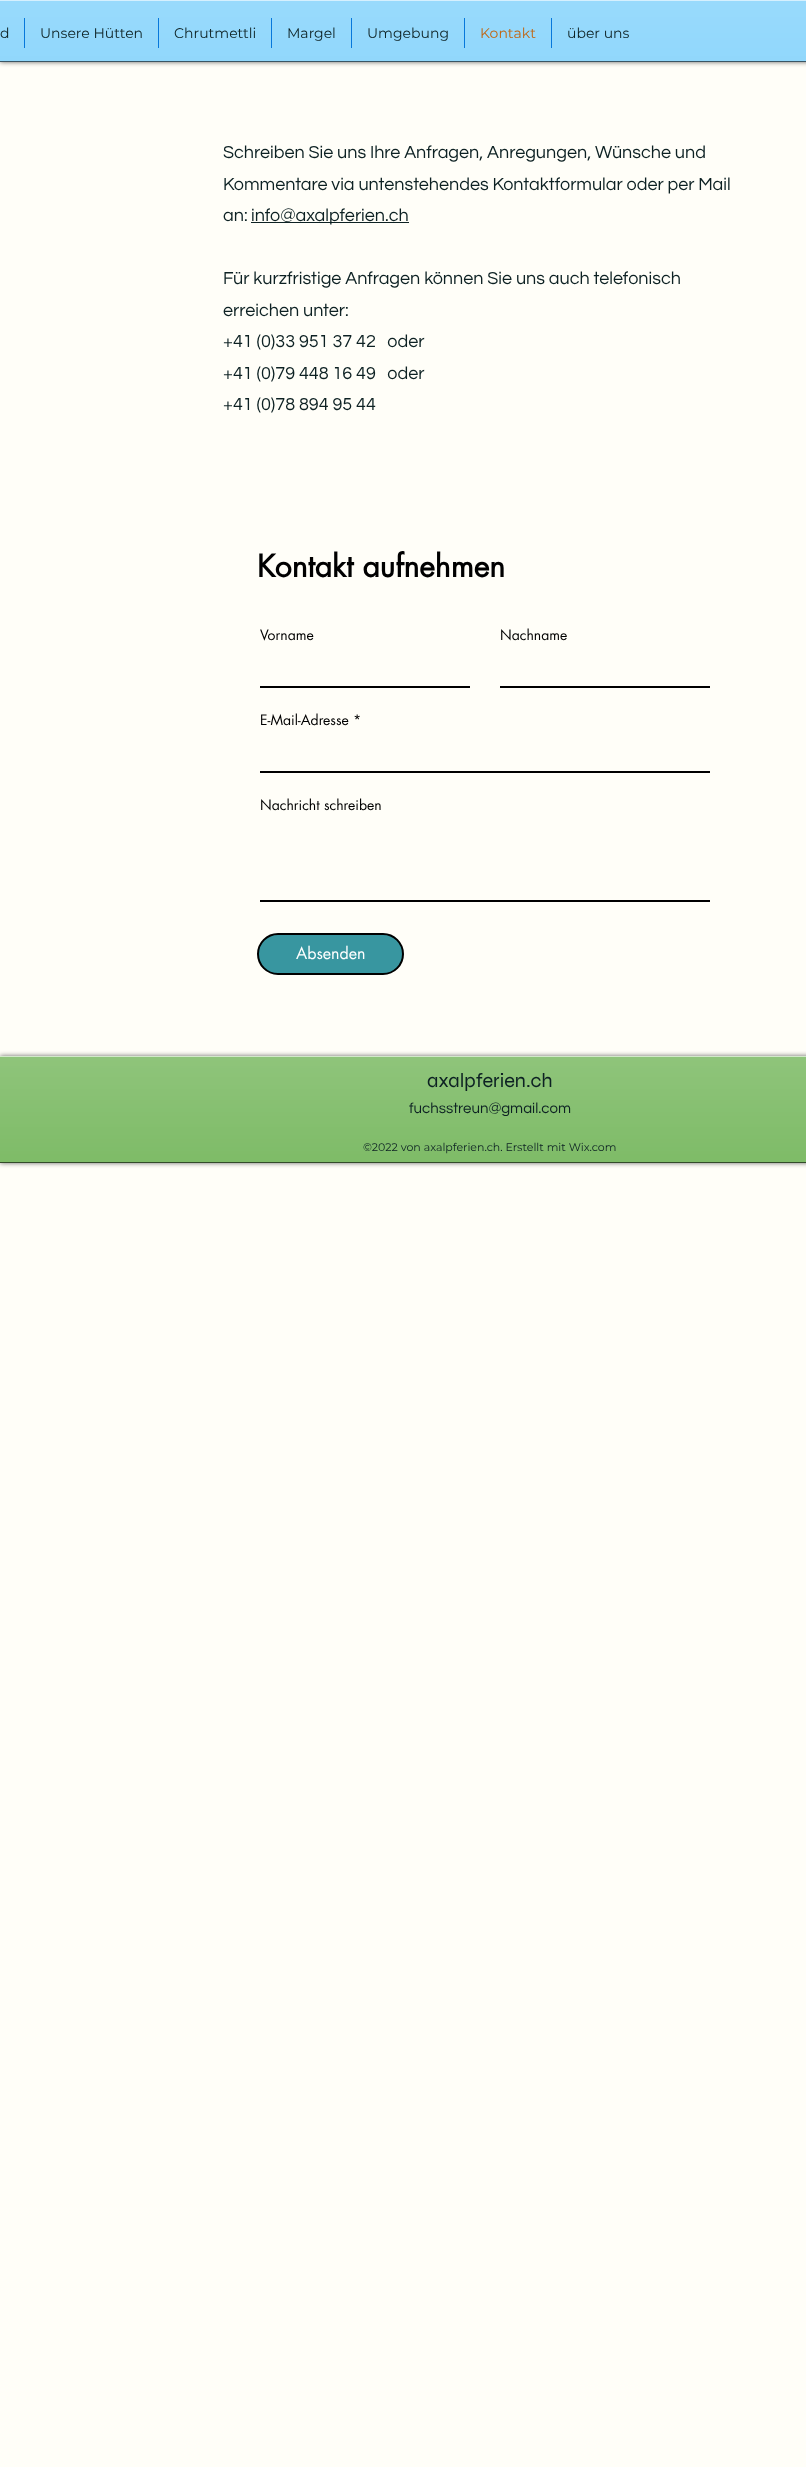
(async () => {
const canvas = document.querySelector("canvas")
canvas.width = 806
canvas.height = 2467
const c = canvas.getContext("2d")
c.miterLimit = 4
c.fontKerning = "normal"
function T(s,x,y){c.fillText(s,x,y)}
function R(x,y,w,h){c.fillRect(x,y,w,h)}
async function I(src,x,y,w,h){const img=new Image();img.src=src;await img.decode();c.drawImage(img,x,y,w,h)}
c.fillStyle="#fffef8"
R(0,0,806,2467)
c.fillStyle="#00000099"
c.filter="blur(2.5px)"
c.beginPath()
c.rect(0,0,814,62)
c.fill()
c.filter="none"
c.fillStyle="#76cefb"
R(0,1,806,60)
await I("1.png",0,1,806,60)
c.fillStyle="#3a5665"
R(0,61,806,1)
c.fillStyle="#d6f0fe"
R(0,0,806,1)
c.font="14px Montserrat"
c.fillStyle="#0d2123"
T("d",0,38)
c.fillStyle="#0778db"
R(24,18,1,30)
c.fillStyle="#0d2123"
T("Unsere Hütten",40,38)
c.fillStyle="#0778db"
R(158,18,1,30)
c.fillStyle="#0d2123"
T("Chrutmettli",174,38)
c.fillStyle="#0778db"
R(271,18,1,30)
c.fillStyle="#0d2123"
T("Margel",287,38)
c.fillStyle="#0778db"
R(351,18,1,30)
c.fillStyle="#0d2123"
T("Umgebung",367,38)
c.fillStyle="#0778db"
R(464,18,1,30)
c.fillStyle="#c16510"
T("Kontakt",480,38)
c.fillStyle="#0778db"
R(551,18,1,30)
c.fillStyle="#0d2123"
T("über uns",567,38)
c.font="18px Questrial"
T("Schreiben Sie uns Ihre Anfragen, Anregungen, Wünsche und",223,158)
T("Kommentare via untenstehendes Kontaktformular oder per Mail",223,190)
T("an:",223,221)
R(251,222,158,1)
T("info@axalpferien.ch",251,221)
T("Für kurzfristige Anfragen können Sie uns auch telefonisch",223,284)
T("erreichen unter:",223,316)
T("+41 (0)33 951 37 42   oder",223,347)
T("+41 (0)79 448 16 49   oder",223,379)
T("+41 (0)78 894 95 44",223,410)
c.font="bold 30px futura"
c.fillStyle="#000"
T("Kontakt aufnehmen",257,577)
c.font="14px futura"
T("Vorname",260,640)
R(260,686,210,2)
T("Nachname",500,640)
R(500,686,210,2)
T("E-Mail-Adresse *",260,725)
R(260,771,450,2)
T("Nachricht schreiben",260,810)
R(260,900,450,2)
c.fillStyle="#3896a0"
c.beginPath()
c.roundRect(258,934,145,40,20)
c.fill()
c.strokeStyle="#000"
c.lineWidth=2
c.stroke()
c.font="16px futura"
c.fillStyle="#fff"
T("Absenden",296,959)
c.fillStyle="#00000099"
c.filter="blur(2.5px)"
c.beginPath()
c.rect(0,1056,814,107)
c.fill()
c.filter="none"
c.fillStyle="#68b04d"
R(0,1057,806,105)
await I("2.png",0,1057,806,105)
c.fillStyle="#334b29"
R(0,1162,806,1)
c.fillStyle="#d2e8ca"
R(0,1056,806,1)
c.font="20px Syne"
c.fillStyle="#0d2123"
T("axalpferien.ch",427,1087)
c.font="15px Questrial"
T("fuchsstreun@gmail.com",409,1113)
c.font="11px Montserrat"
T("©2022 von axalpferien.ch. Erstellt mit Wix.com",363,1151)
})()
